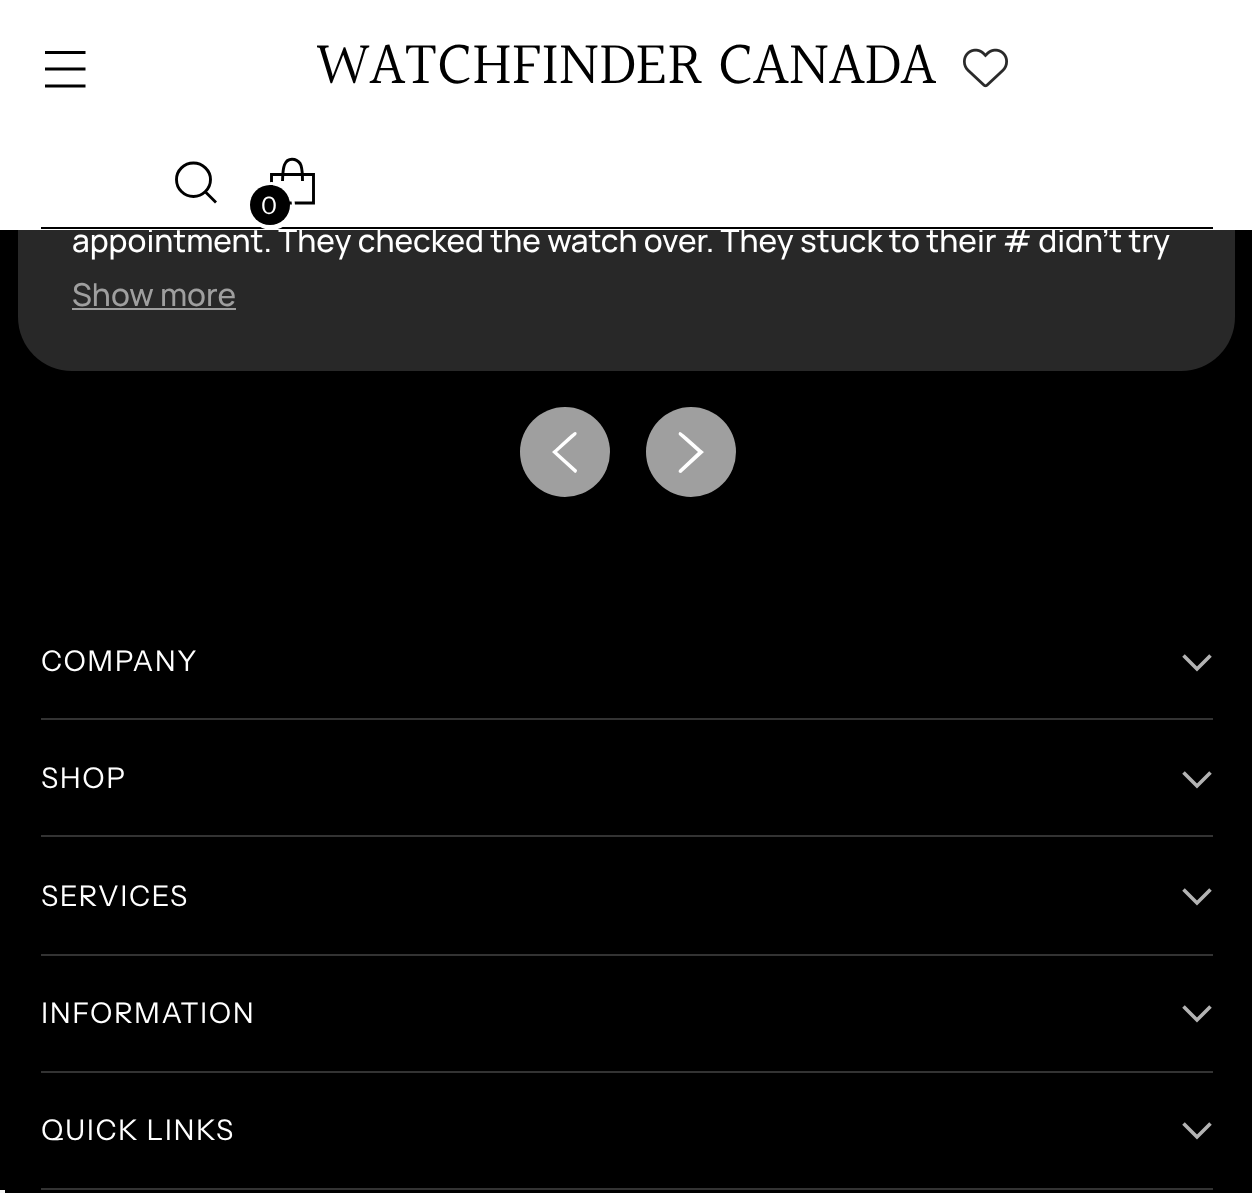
(async () => {
const canvas = document.querySelector("canvas")
canvas.width = 1252
canvas.height = 1193
const c = canvas.getContext("2d")
c.miterLimit = 4
c.fontKerning = "normal"
function T(s,x,y){c.fillText(s,x,y)}
function R(x,y,w,h){c.fillRect(x,y,w,h)}
function Q(x,y,w,h,r){c.beginPath();c.roundRect(x,y,w,h,r);c.fill()}
async function I(src,x,y,w,h){const img=new Image();img.src=src;await img.decode();c.drawImage(img,x,y,w,h)}
let path
c.fillStyle="#000"
R(0,0,1252,1193)
c.fillStyle="#282828"
Q(18,-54,1217,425,54)
c.fillStyle="#fff"
R(0,0,1252,230)
c.fillStyle="#000"
R(41,227,1172,2)
path = new Path2D("M45 69h40.5m-40.5-16.5h40.5m-40.5 33.5h40.5")
c.strokeStyle="#000"
c.lineWidth=2.9
c.stroke(path)
c.save()
c.beginPath()
c.rect(317,18,619,97)
c.clip()
c.font="61.5px Halant"
T("WATCHFINDER CANADA",316,86)
c.restore()
await I("1.png",963,48,45,40)
path = new Path2D("M193.5 196.5c9 0 17-7.5 17-17c0-9-8-16.5-17-16.5c-9.5 0-17 7.5-17 16.5c0 9.5 7.5 17 17 17z")
c.lineCap="round"
c.stroke(path)
path = new Path2D("M205.5 192l10.5 10.5")
c.lineCap="butt"
c.stroke(path)
path = new Path2D("M302.5 181c0-5 0-10.5-1.5-15.5c-1-3-3.5-5-6.5-6c-12.5-2.5-11.5 13.5-12 21.5")
c.lineJoin="bevel"
c.stroke(path)
path = new Path2D("M313.5 203v-28.5h-42v28.5z")
c.lineJoin="miter"
c.stroke(path)
c.beginPath()
c.roundRect(249.5,183.5,44,45,22)
c.strokeStyle="#fff"
c.lineWidth=3
c.stroke()
c.beginPath()
c.arc(270,205,20,0,7)
c.fill()
c.font="24px Instrument Sans"
c.fillStyle="#fff"
T("0",261,214)
c.font="500 31.5px Manrope"
T("appointment. They checked the watch over. They stuck to their # didn’t try",72,252)
c.fillStyle="#9f9f9f"
T("Show more",72,306)
R(72,308,164,2)
c.beginPath()
c.arc(565,452,45,0,7)
c.fill()
c.fillStyle="#fff"
path = new Path2D("M576 435c1-1 1-3-1-3c-2 0-20 18-23 20l23 21c1 0 2-1 2-3l-20-18z")
c.fill(path)
c.fillStyle="#9f9f9f"
c.beginPath()
c.arc(691,452,45,0,7)
c.fill()
c.fillStyle="#fff"
path = new Path2D("M679 435c-1-1 0-3 1-3c2 0 21 18 24 20l-23 21c-2 0-3-1-2-3l19-18z")
c.fill(path)
c.fillStyle="#333"
R(41,718,1172,2)
c.letterSpacing="1.5px"
c.font="28.5px Instrument Sans"
c.fillStyle="#fff"
T("COMPANY",41,671)
path = new Path2D("M1183.5 655.5l13.5 13.5l13.5-13.5")
c.strokeStyle="#b3b3b3"
c.lineWidth=3.6
c.stroke(path)
c.fillStyle="#333"
R(41,835,1172,2)
c.fillStyle="#fff"
T("SHOP",41,788)
path = new Path2D("M1183.5 772.5l13.5 13.5l13.5-13.5")
c.stroke(path)
c.fillStyle="#333"
R(41,954,1172,2)
c.fillStyle="#fff"
T("SERVICES",41,906)
path = new Path2D("M1183.5 889.5l13.5 13.5l13.5-13.5")
c.stroke(path)
c.fillStyle="#333"
R(41,1071,1172,2)
c.fillStyle="#fff"
T("INFORMATION",41,1023)
path = new Path2D("M1183.5 1006.5l13.5 13.5l13.5-13.5")
c.stroke(path)
c.fillStyle="#333"
R(41,1188,1172,2)
c.fillStyle="#fff"
T("QUICK LINKS",41,1140)
path = new Path2D("M1183.5 1123.5l13.5 13.5l13.5-13.5")
c.stroke(path)
c.fillStyle="#f5f5f5"
R(0,1190,5,3)
})()
